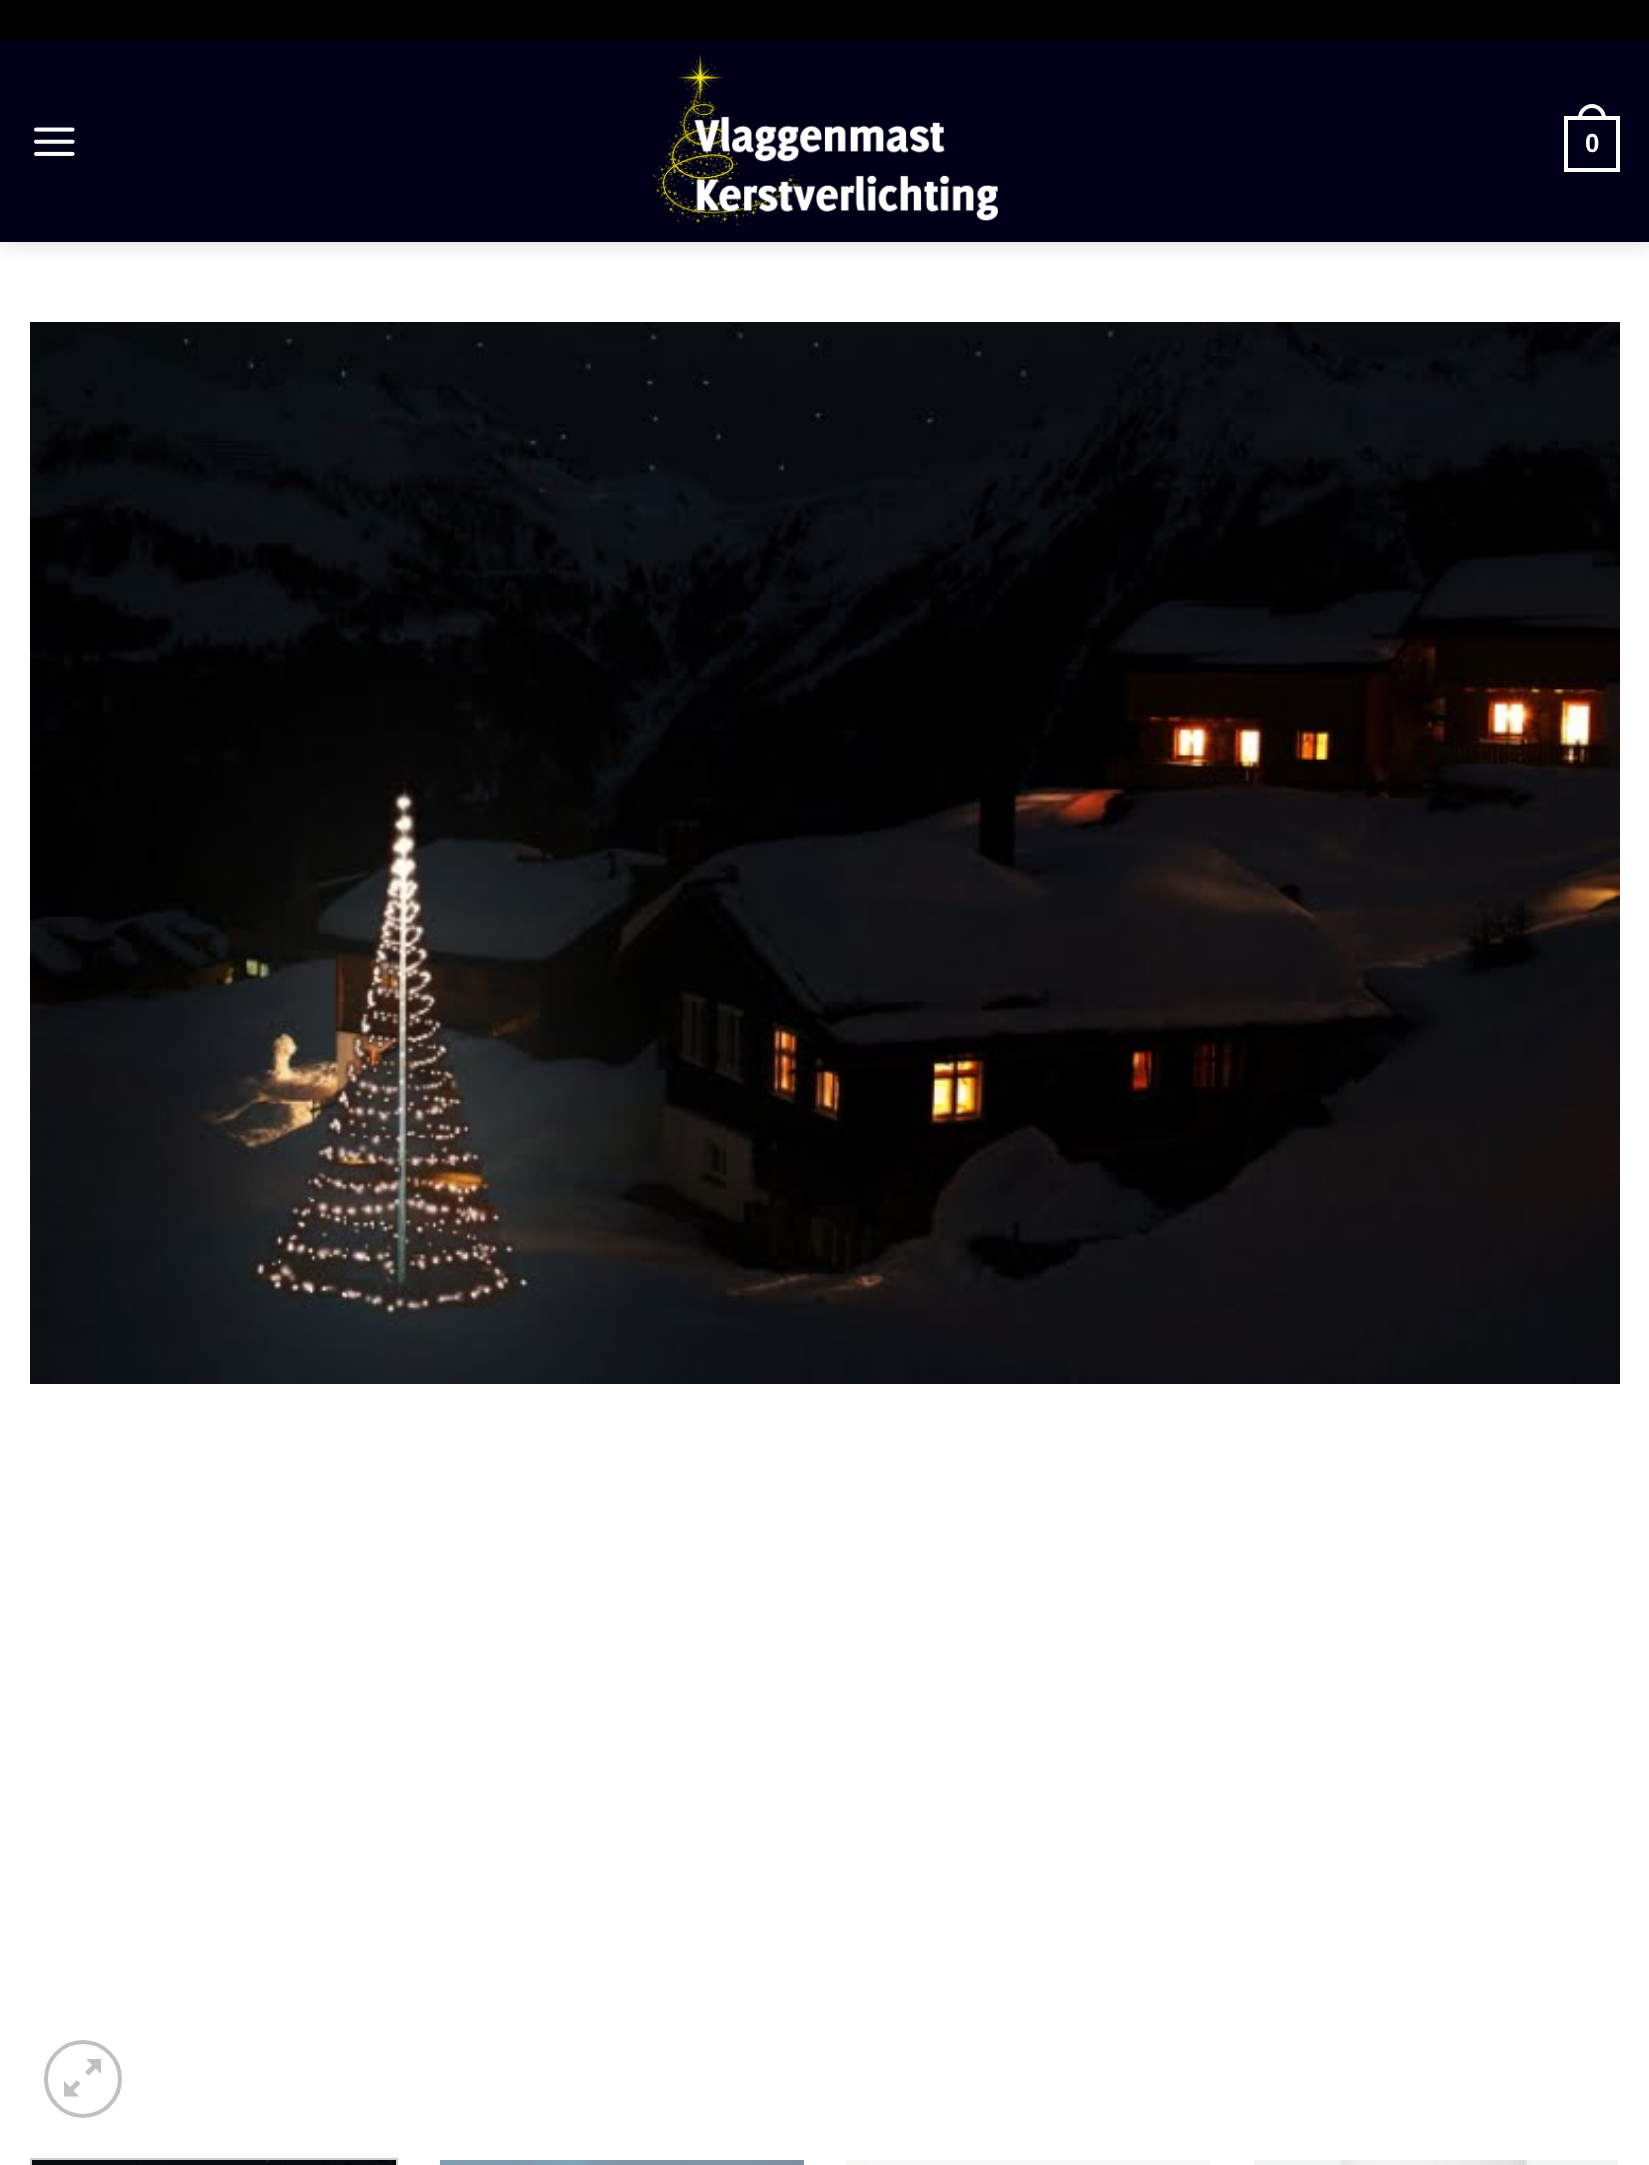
(async () => {
const canvas = document.querySelector("canvas")
canvas.width = 1649
canvas.height = 2165
const c = canvas.getContext("2d")
c.miterLimit = 4
c.fontKerning = "normal"
function T(s,x,y){c.fillText(s,x,y)}
function R(x,y,w,h){c.fillRect(x,y,w,h)}
async function I(src,x,y,w,h){const img=new Image();img.src=src;await img.decode();c.drawImage(img,x,y,w,h)}
let path
c.fillStyle="#fff"
R(0,0,1649,2165)
c.fillStyle="#00000026"
c.filter="blur(10px)"
c.beginPath()
c.rect(2,2,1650,242)
c.fill()
c.filter="none"
c.fillStyle="#000"
R(0,0,1649,40)
c.fillStyle="#000019"
R(0,40,1649,202)
await I("1.png",34,127,41,29)
await I("2.png",652,54,346,174)
c.strokeStyle="#fff"
c.lineWidth=4
c.strokeRect(1566,118,52,52)
c.fillStyle="#fff"
path = new Path2D("M1592 104c7.5 0 14 6.5 14 14v2h-28v-2c0-7.5 6.5-14 14-14zm0 4c5.5 0 10 4.5 10 10v2h-20v-2c0-5.5 4.5-10 10-10z")
c.fill(path,"evenodd")
c.font="bold 26px Liberation Sans"
T("0",1585,152)
await I("3.png",30,322,1590,1062)
c.beginPath()
c.arc(83,2079,37,0,7)
c.strokeStyle="#c0c0c0"
c.stroke()
c.fillStyle="#c0c0c0"
path = new Path2D("M101 2059v15l-5.5-5.5l-7 7l-3.5-3.5l7-7l-6-6zm-20.5 24.5l-7 7l5.5 6h-15v-15.5l6 6l7-7z")
c.fill(path)
c.strokeStyle="#ccc"
c.lineWidth=2
c.strokeRect(31,2159,366,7)
await I("4.png",32,2160,364,5)
await I("5.png",440,2160,364,5)
await I("6.png",846,2160,364,5)
await I("7.png",1254,2160,364,5)
})()
